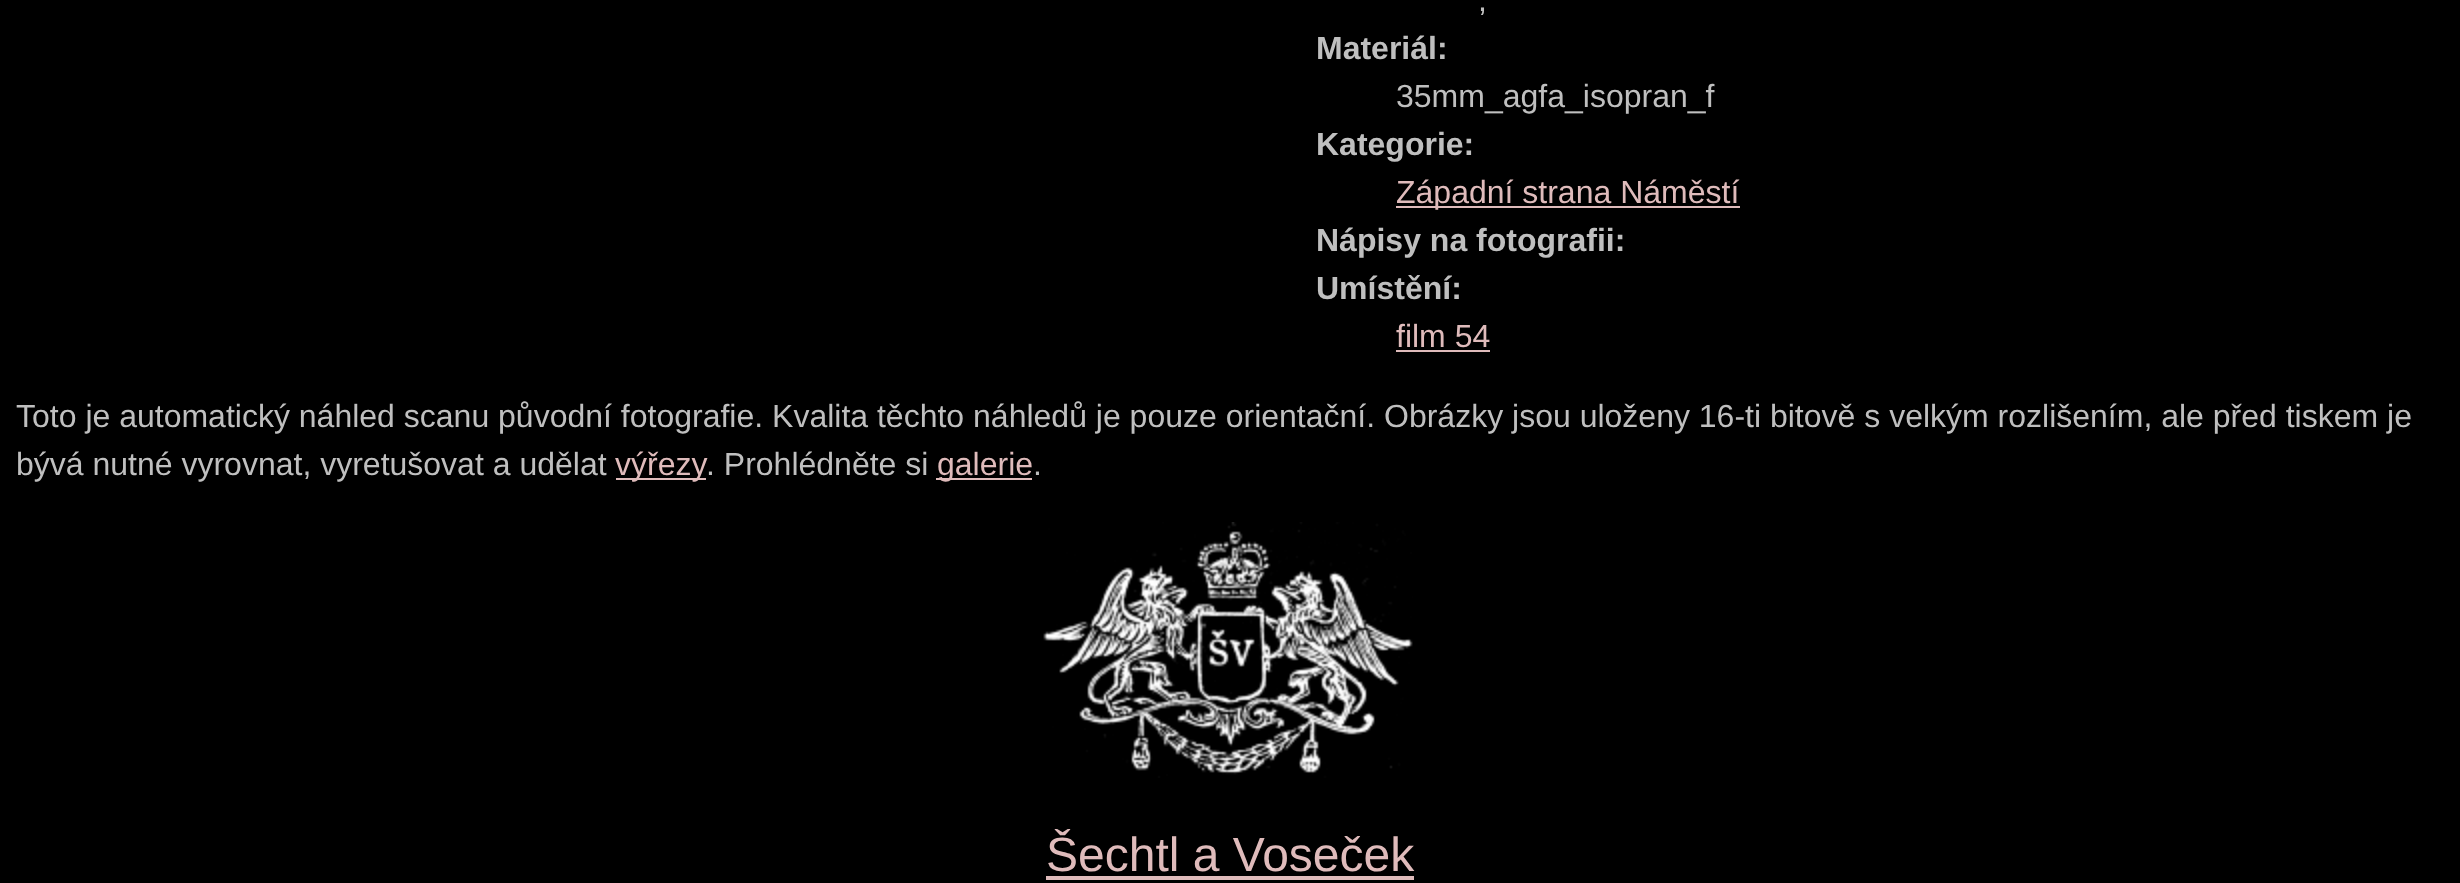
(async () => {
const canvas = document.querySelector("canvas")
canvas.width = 2460
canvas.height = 883
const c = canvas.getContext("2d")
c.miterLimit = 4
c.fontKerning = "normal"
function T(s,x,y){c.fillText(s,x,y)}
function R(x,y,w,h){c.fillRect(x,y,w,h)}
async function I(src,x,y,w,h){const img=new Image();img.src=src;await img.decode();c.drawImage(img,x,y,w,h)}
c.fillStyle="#000"
R(0,0,2460,883)
c.font="32px Liberation Sans"
c.fillStyle="#bfbfbf"
T(",",1478,11)
c.font="bold 32px Liberation Sans"
T("Materiál:",1316,59)
c.font="32px Liberation Sans"
T("35mm_agfa_isopran_f",1396,107)
c.font="bold 32px Liberation Sans"
T("Kategorie:",1316,155)
c.fillStyle="#dfbbbb"
R(1396,206,344,2)
c.font="32px Liberation Sans"
T("Západní strana Náměstí",1396,203)
c.font="bold 32px Liberation Sans"
c.fillStyle="#bfbfbf"
T("Nápisy na fotografii:",1316,251)
T("Umístění:",1316,299)
c.font="32px Liberation Sans"
c.fillStyle="#dfbbbb"
T("film 54",1396,347)
R(1396,350,94,2)
c.fillStyle="#bfbfbf"
T("Toto je automatický náhled scanu původní fotografie. Kvalita těchto náhledů je pouze orientační. Obrázky jsou uloženy 16-ti bitově s velkým rozlišením, ale před tiskem je",16,427)
T("bývá nutné vyrovnat, vyretušovat a udělat",16,475)
c.fillStyle="#dfbbbb"
R(616,478,90,2)
T("výřezy",615,475)
c.fillStyle="#bfbfbf"
T(". Prohlédněte si",706,475)
c.fillStyle="#dfbbbb"
R(936,478,96,2)
T("galerie",937,475)
c.fillStyle="#bfbfbf"
T(".",1033,475)
await I("1.png",1043,522,370,256)
c.font="48px Liberation Sans"
c.fillStyle="#dfbbbb"
T("Šechtl a Voseček",1046,871)
R(1046,876,368,4)
})()
